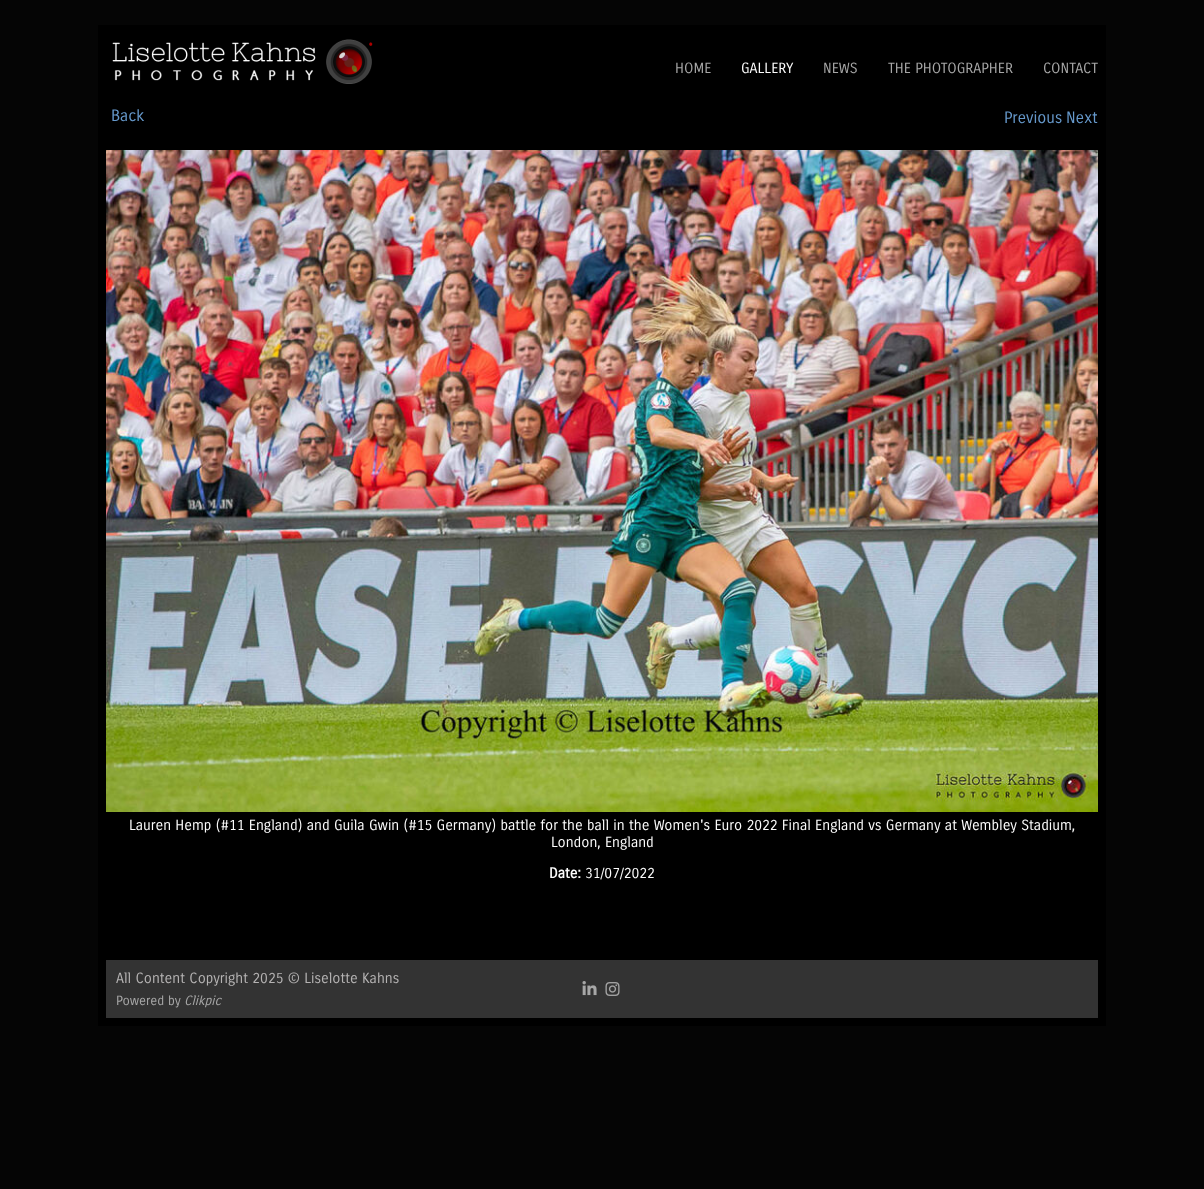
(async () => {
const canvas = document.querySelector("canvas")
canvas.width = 1204
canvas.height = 1189
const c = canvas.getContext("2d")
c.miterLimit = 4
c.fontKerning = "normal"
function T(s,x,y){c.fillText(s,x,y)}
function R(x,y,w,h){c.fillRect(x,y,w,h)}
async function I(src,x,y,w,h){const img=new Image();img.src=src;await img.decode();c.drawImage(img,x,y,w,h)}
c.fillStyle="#050505"
R(0,0,1204,1189)
c.fillStyle="#000"
R(98,25,1008,1001)
await I("1.png",112,39,261,45)
c.font="14.4px Carrois Gothic"
c.fillStyle="#a7a7a7"
T("HOME",675,73)
c.fillStyle="#fcfcfc"
T("GALLERY",741,73)
c.fillStyle="#a7a7a7"
T("NEWS",823,73)
T("THE PHOTOGRAPHER",888,73)
T("CONTACT",1043,73)
c.font="16px Carrois Gothic"
c.fillStyle="#69c"
T("Back",111,121)
T("Previous",1004,123)
T("Next",1066,123)
await I("2.png",106,150,992,662)
c.font="14.4px Carrois Gothic"
c.fillStyle="#fcfcfc"
T("Lauren Hemp (#11 England) and Guila Gwin (#15 Germany) battle for the ball in the Women's Euro 2022 Final England vs Germany at Wembley Stadium,",129,830)
T("London, England",551,847)
c.font="bold 14.4px Carrois Gothic"
T("Date:",549,878)
c.font="14.4px Carrois Gothic"
T("31/07/2022",585,878)
c.fillStyle="#333"
R(106,960,992,58)
c.fillStyle="#b5b3b3"
T("All Content Copyright 2025 © Liselotte Kahns",116,983)
c.font="13px Carrois Gothic"
c.fillStyle="#a7a7a7"
T("Powered by",116,1005)
c.font="italic 13px Carrois Gothic"
T("Clikpic",184,1005)
await I("3.png",582,981,15,15)
await I("4.png",605,982,15,14)
})()
